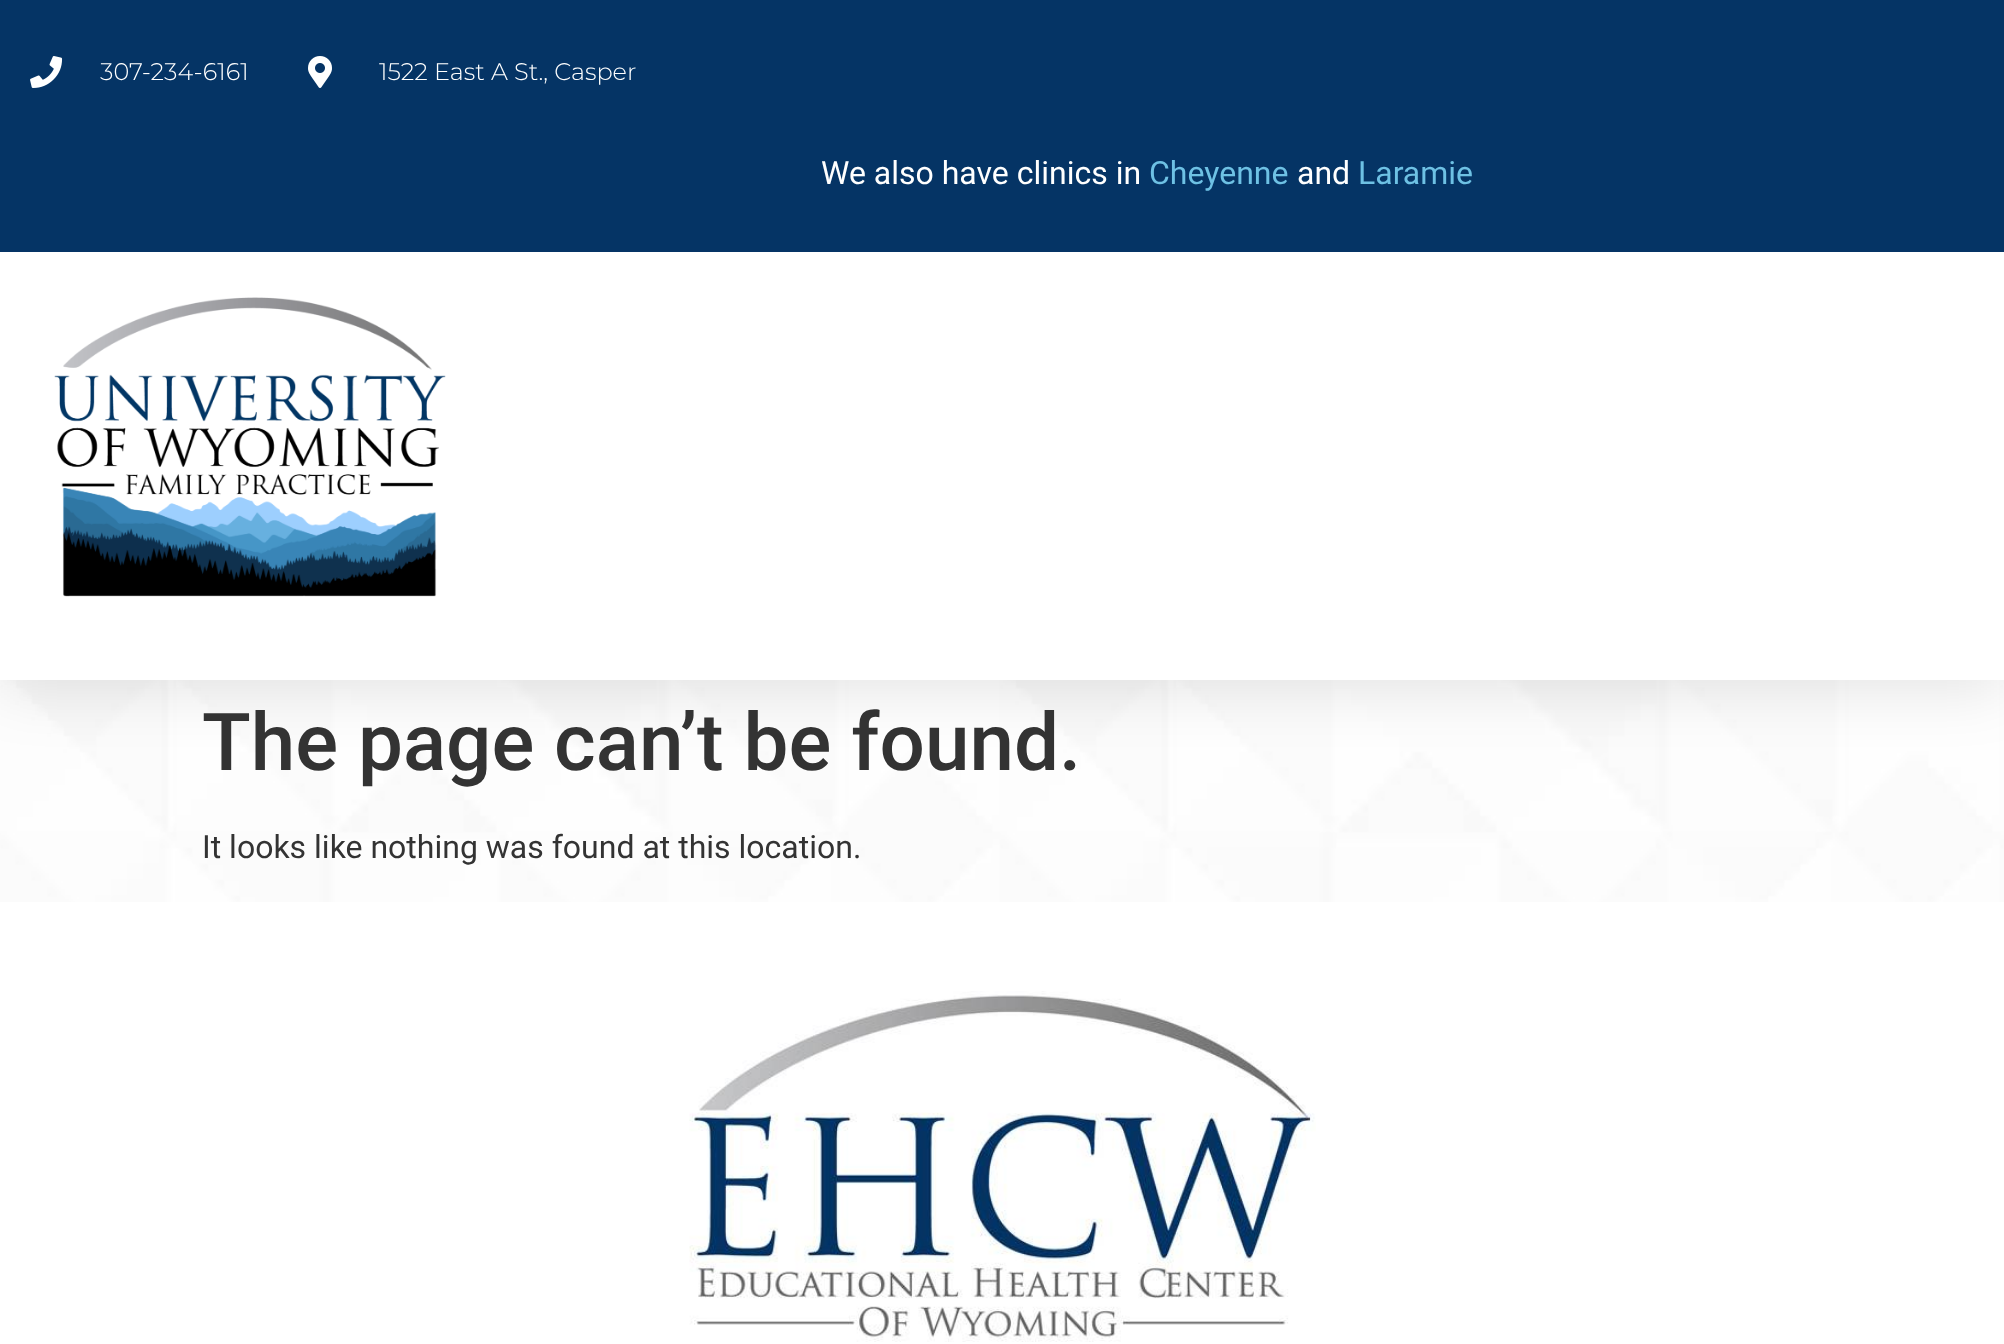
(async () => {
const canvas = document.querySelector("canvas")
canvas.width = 2004
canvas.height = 1344
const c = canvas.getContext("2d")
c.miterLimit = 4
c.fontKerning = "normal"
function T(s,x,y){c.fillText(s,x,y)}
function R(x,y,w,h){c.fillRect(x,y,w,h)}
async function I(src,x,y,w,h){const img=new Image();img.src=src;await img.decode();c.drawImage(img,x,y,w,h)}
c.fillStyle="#fff"
R(0,0,2004,1344)
await I("1.png",0,680,2004,222)
c.fillStyle="#0000001a"
c.filter="blur(30px)"
c.beginPath()
c.rect(0,10,2004,680)
c.fill()
c.filter="none"
c.fillStyle="#053465"
R(0,0,2004,252)
await I("2.png",30,56,33,32)
c.font="300 24px Montserrat"
c.fillStyle="#fff"
T("307-234-6161",100,80)
await I("3.png",308,56,24,32)
T("1522 East A St., Casper",379,80)
c.font="32px Roboto"
T("We also have clinics in",821,184)
c.fillStyle="#6ec1e4"
T("Cheyenne",1149,184)
c.fillStyle="#fff"
T("and",1297,184)
c.fillStyle="#6ec1e4"
T("Laramie",1358,184)
c.fillStyle="#fff"
R(0,252,2004,428)
await I("4.png",54,297,392,300)
c.font="500 80px Roboto"
c.fillStyle="#333"
T("The page can’t be found.",202,770)
c.font="32px Roboto"
T("It looks like nothing was found at this location.",202,858)
await I("5.png",689,991,627,351)
})()
